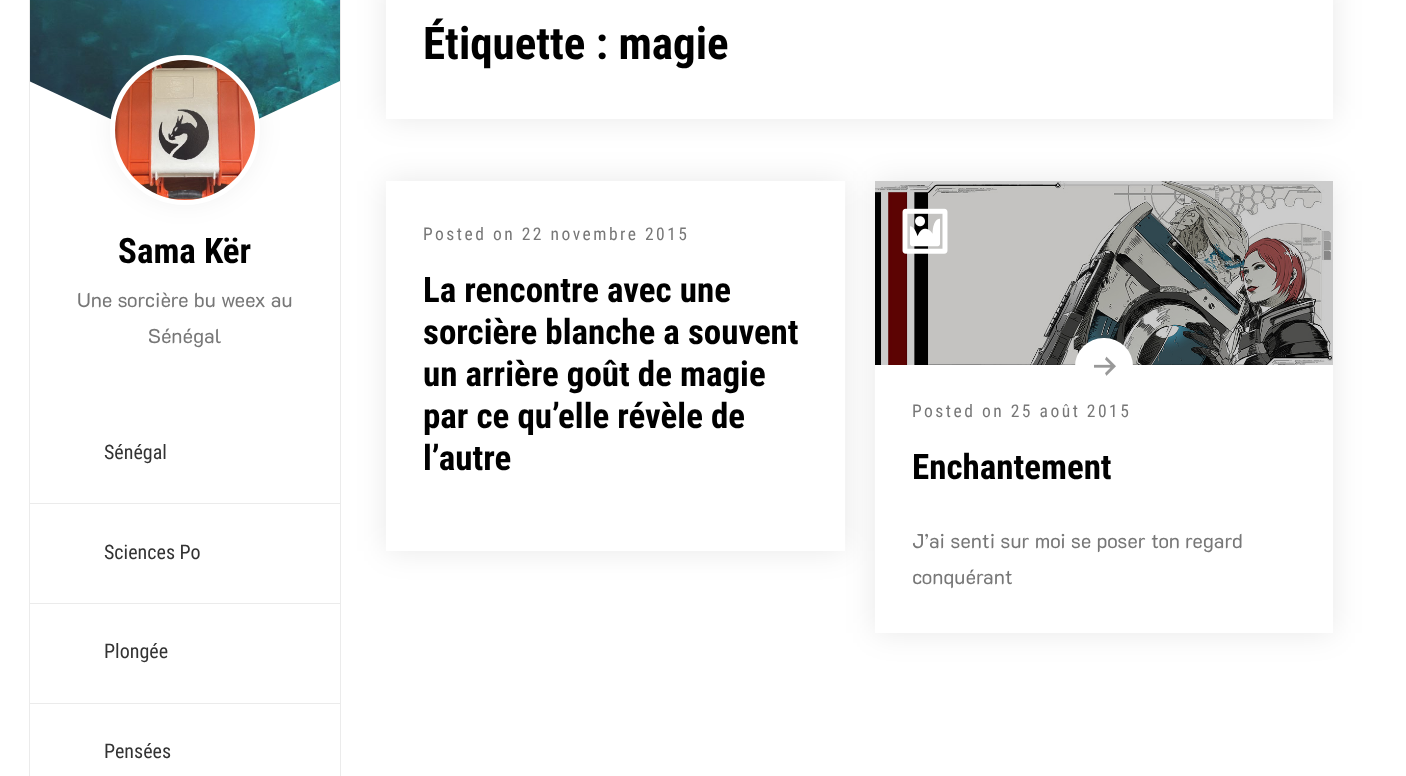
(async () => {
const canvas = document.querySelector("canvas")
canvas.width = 1406
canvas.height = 776
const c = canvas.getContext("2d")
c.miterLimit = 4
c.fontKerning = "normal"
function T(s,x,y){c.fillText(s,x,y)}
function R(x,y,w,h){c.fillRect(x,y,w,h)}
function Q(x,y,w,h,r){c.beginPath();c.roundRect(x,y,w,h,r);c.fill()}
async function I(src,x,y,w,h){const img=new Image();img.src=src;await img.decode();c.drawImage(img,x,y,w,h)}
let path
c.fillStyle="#fff"
R(0,0,1406,776)
c.fillStyle="#00000017"
c.filter="blur(15.5px)"
c.beginPath()
c.rect(386,-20,947,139)
c.fill()
c.filter="none"
c.filter="blur(15.5px)"
c.beginPath()
c.rect(386,181,459,370)
c.fill()
c.filter="none"
c.fillStyle="#ebebeb"
R(340,0,1,776)
R(29,0,1,776)
await I("1.png",30,0,310,120)
c.save()
c.beginPath()
c.rect(30,0,310,155)
c.clip()
c.fillStyle="#fff"
path = new Path2D("M27 80l281 131l-59 127l-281-131z")
c.fill(path)
path = new Path2D("M61 211l281-131l59 127l-281 131z")
c.fill(path)
c.restore()
c.fillStyle="#0000000d"
c.filter="blur(12.5px)"
c.beginPath()
c.roundRect(110,55,150,150,75)
c.fill()
c.filter="none"
c.fillStyle="#fff"
c.beginPath()
c.arc(185,130,72.5,0,7)
c.fill()
c.strokeStyle="#fff"
c.lineWidth=5
c.stroke()
await I("2.png",115,60,140,140)
c.font="bold 35px Roboto Condensed"
c.fillStyle="#000"
T("Sama Kër",118,263)
c.font="20px 'K2D'"
c.fillStyle="#777"
T("Une sorcière bu weex au",77,307)
T("Sénégal",148,343)
c.fillStyle="#ebebeb"
R(30,503,310,1)
c.font="20px Roboto Condensed"
c.fillStyle="#333"
T("Sénégal",104,459)
c.fillStyle="#ebebeb"
R(30,603,310,1)
c.fillStyle="#333"
T("Sciences Po",104,559)
c.fillStyle="#ebebeb"
R(30,703,310,1)
c.fillStyle="#333"
T("Plongée",104,658)
T("Pensées",104,758)
c.fillStyle="#fff"
R(386,0,947,119)
c.font="bold 45px Roboto Condensed"
c.fillStyle="#000"
T("Étiquette : magie",423,59)
c.fillStyle="#fff"
R(386,181,459,370)
c.letterSpacing="2.5px"
c.font="17.5px Roboto Condensed"
c.fillStyle="#777"
T("Posted on 22 novembre 2015",423,240)
c.letterSpacing="0px"
c.font="bold 35px Roboto Condensed"
c.fillStyle="#000"
T("La rencontre avec une",423,302)
T("sorcière blanche a souvent",423,344)
T("un arrière goût de magie",423,386)
T("par ce qu’elle révèle de",423,428)
T("l’autre",423,470)
c.fillStyle="#00000017"
c.filter="blur(15.5px)"
c.beginPath()
c.rect(875,181,458,452)
c.fill()
c.filter="none"
c.fillStyle="#fff"
R(875,181,458,452)
await I("3.png",875,181,458,184)
c.fillStyle="#00000033"
R(875,181,458,184)
await I("4.png",902,208,46,46)
c.fillStyle="#fff"
Q(1075,338,58,57,28.5)
await I("5.png",1094,356,22,20)
c.letterSpacing="2.5px"
c.font="17.5px Roboto Condensed"
c.fillStyle="#777"
T("Posted on 25 août 2015",912,417)
c.letterSpacing="0px"
c.font="bold 35px Roboto Condensed"
c.fillStyle="#000"
T("Enchantement",912,479)
c.font="20px 'K2D'"
c.fillStyle="#777"
T("J’ai senti sur moi se poser ton regard",912,548)
T("conquérant",912,584)
})()
